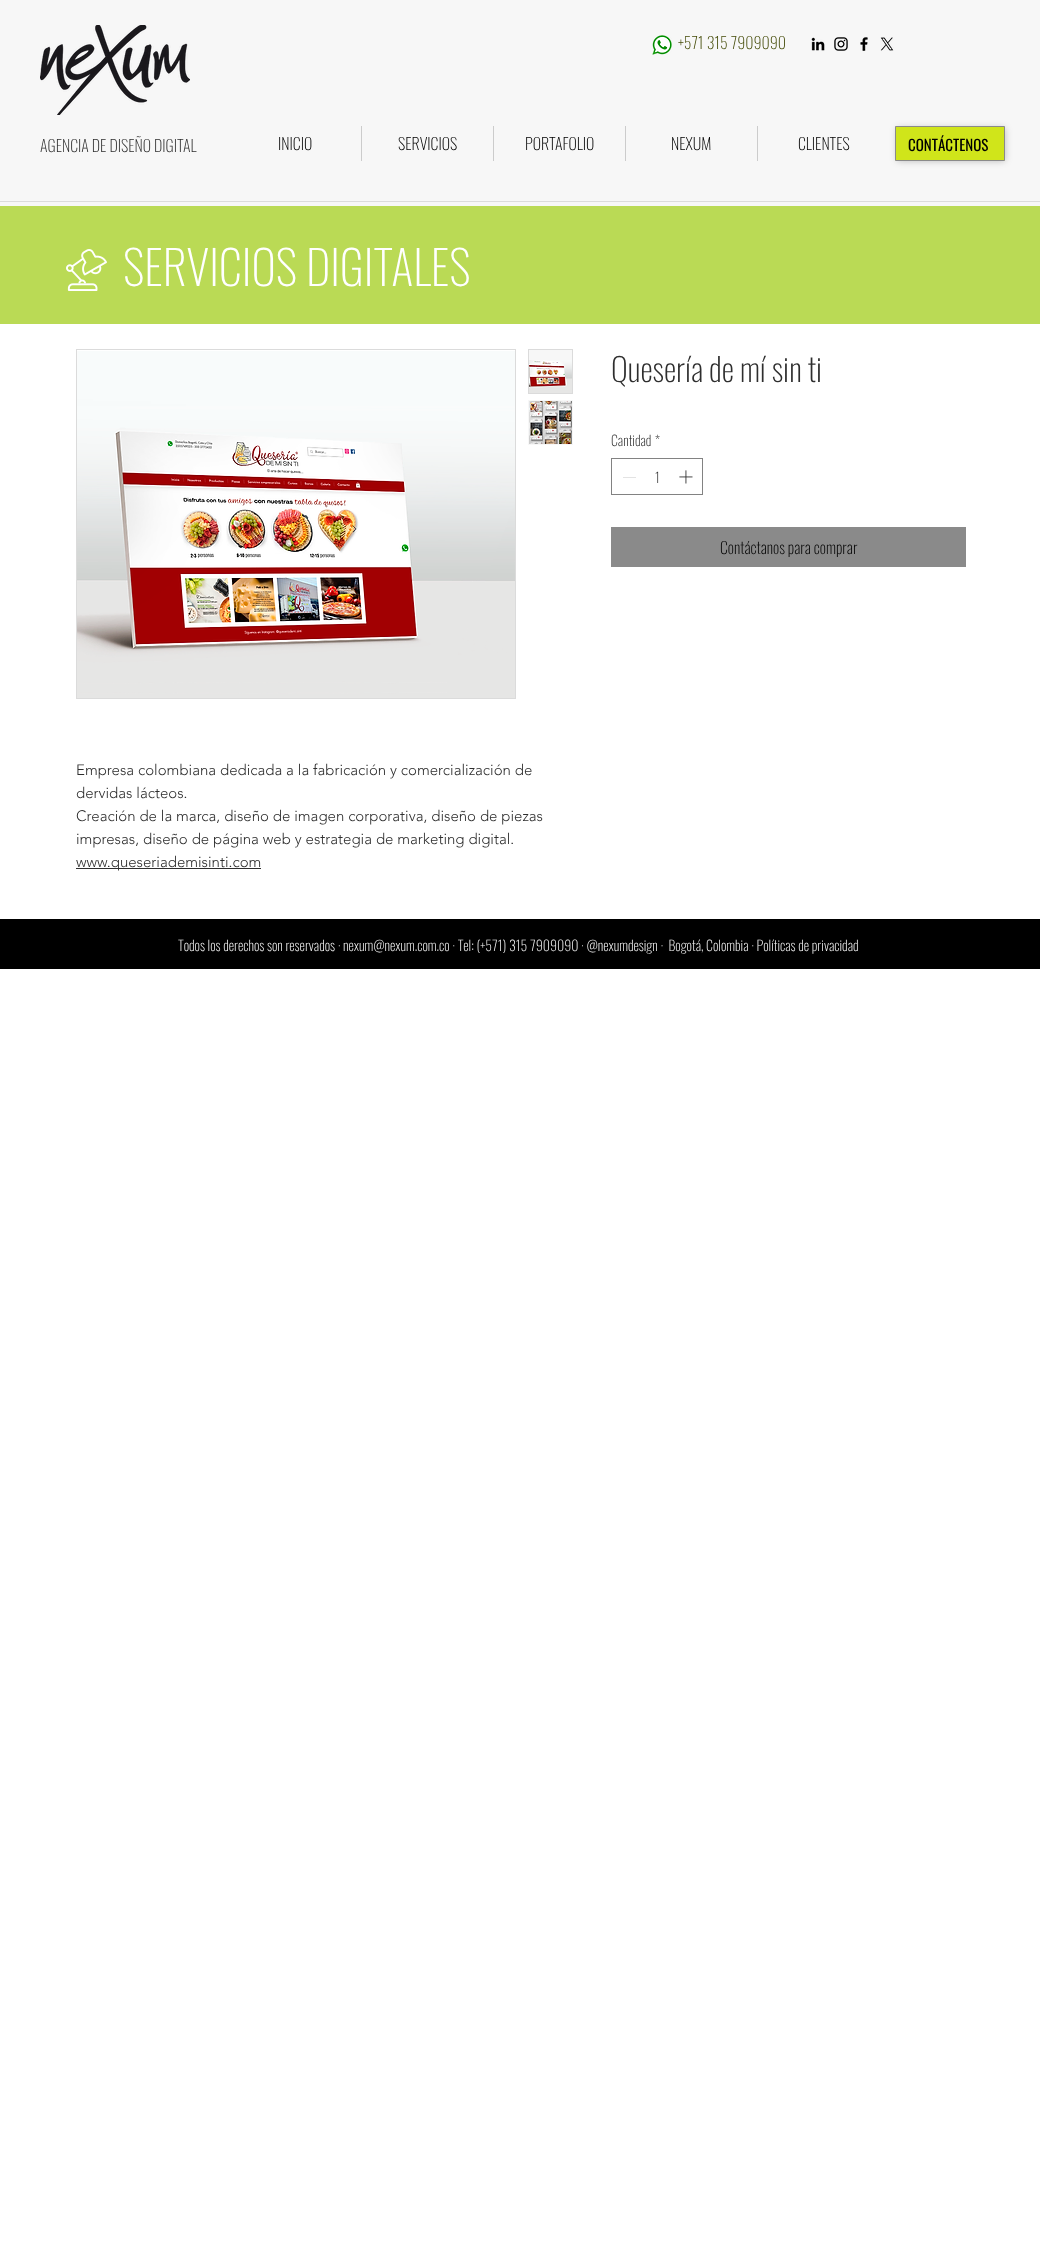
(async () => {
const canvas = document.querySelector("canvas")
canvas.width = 1040
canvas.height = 2242
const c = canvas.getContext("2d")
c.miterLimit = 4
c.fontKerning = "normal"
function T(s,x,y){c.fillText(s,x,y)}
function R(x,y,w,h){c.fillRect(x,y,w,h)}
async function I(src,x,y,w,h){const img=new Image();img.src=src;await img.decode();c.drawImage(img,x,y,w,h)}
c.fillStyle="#fff"
R(0,0,1040,2242)
c.fillStyle="#f7f7f7"
R(0,0,1040,206)
await I("1.png",40,25,150,90)
await I("2.png",652,35,20,20)
c.font="200 16px Oswald"
c.fillStyle="#454c09"
T("+571 315 7909090",678,49)
await I("3.png",811,37,14,14)
await I("4.png",834,37,14,14)
await I("5.png",860,37,8,14)
await I("6.png",880,37,14,14)
c.fillStyle="#2e2e2e"
T("AGENCIA DE DISEÑO DIGITAL",40,152)
c.fillStyle="#000"
T("INICIO",278,150)
c.fillStyle="#ccc"
R(361,126,1,35)
c.fillStyle="#000"
T("SERVICIOS",398,150)
c.fillStyle="#ccc"
R(493,126,1,35)
c.fillStyle="#000"
T("PORTAFOLIO",525,150)
c.fillStyle="#ccc"
R(625,126,1,35)
c.fillStyle="#000"
T("NEXUM",671,150)
c.fillStyle="#ccc"
R(757,126,1,35)
c.fillStyle="#000"
T("CLIENTES",798,150)
c.fillStyle="#0000003d"
c.filter="blur(3.5px)"
c.beginPath()
c.rect(897,128,108,33)
c.fill()
c.filter="none"
c.fillStyle="#d0e51a"
c.beginPath()
c.rect(895.5,126.5,109,34)
c.fill()
c.strokeStyle="#8a8a8a"
c.stroke()
c.font="15px Oswald"
c.fillStyle="#000"
T("CONTÁCTENOS",908,151)
c.fillStyle="#dbdbdb"
R(0,201,1040,1)
c.fillStyle="#bada55"
R(0,206,1040,118)
await I("7.png",66,249,41,42)
c.font="200 47px Oswald"
c.fillStyle="#fff"
T("SERVICIOS DIGITALES",123,286)
c.font="200 32px Oswald"
c.fillStyle="#2e2e2e"
T("Quesería de mí sin ti",611,382)
c.font="200 14px Oswald"
T("Cantidad",611,446)
T("*",655,446)
c.strokeStyle="#828282"
c.strokeRect(611.5,458.5,91,36)
c.fillStyle="#e3e3e3"
R(623,477,13,1)
c.fillStyle="#2e2e2e"
T("1",655,483)
await I("8.png",679,470,14,14)
c.fillStyle="#8a8a8a"
R(611,527,355,40)
c.font="200 16px Oswald"
c.fillStyle="#000"
T("Contáctanos para comprar",720,554)
c.strokeStyle="#dbdbdb"
c.strokeRect(76.5,349.5,439,349)
await I("9.png",77,351,438,347)
c.fillStyle="#f7f7f7"
R(529,350,43,10)
c.strokeRect(528.5,349.5,44,44)
await I("10.png",529,360,43,33)
R(528,400,45,45)
await I("11.png",529,401,43,43)
c.font="300 15px 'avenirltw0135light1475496'"
c.fillStyle="#2e2e2e"
T("Empresa colombiana dedicada a la fabricación y comercialización de",76,775)
T("dervidas lácteos.",76,798)
T("Creación de la marca, diseño de imagen corporativa, diseño de piezas",76,821)
T("impresas, diseño de página web y estrategia de marketing digital.",76,844)
R(76,868,185,1)
T("www.queseriademisinti.com",76,867)
c.fillStyle="#000"
R(0,919,1040,50)
c.font="200 14px Oswald"
c.fillStyle="#f7f7f7"
T("Todos los derechos son reservados · nexum@nexum.com.co · Tel: (+571) 315 7909090 · @nexumdesign ·  Bogotá, Colombia · Políticas de privacidad",178,951)
})()
